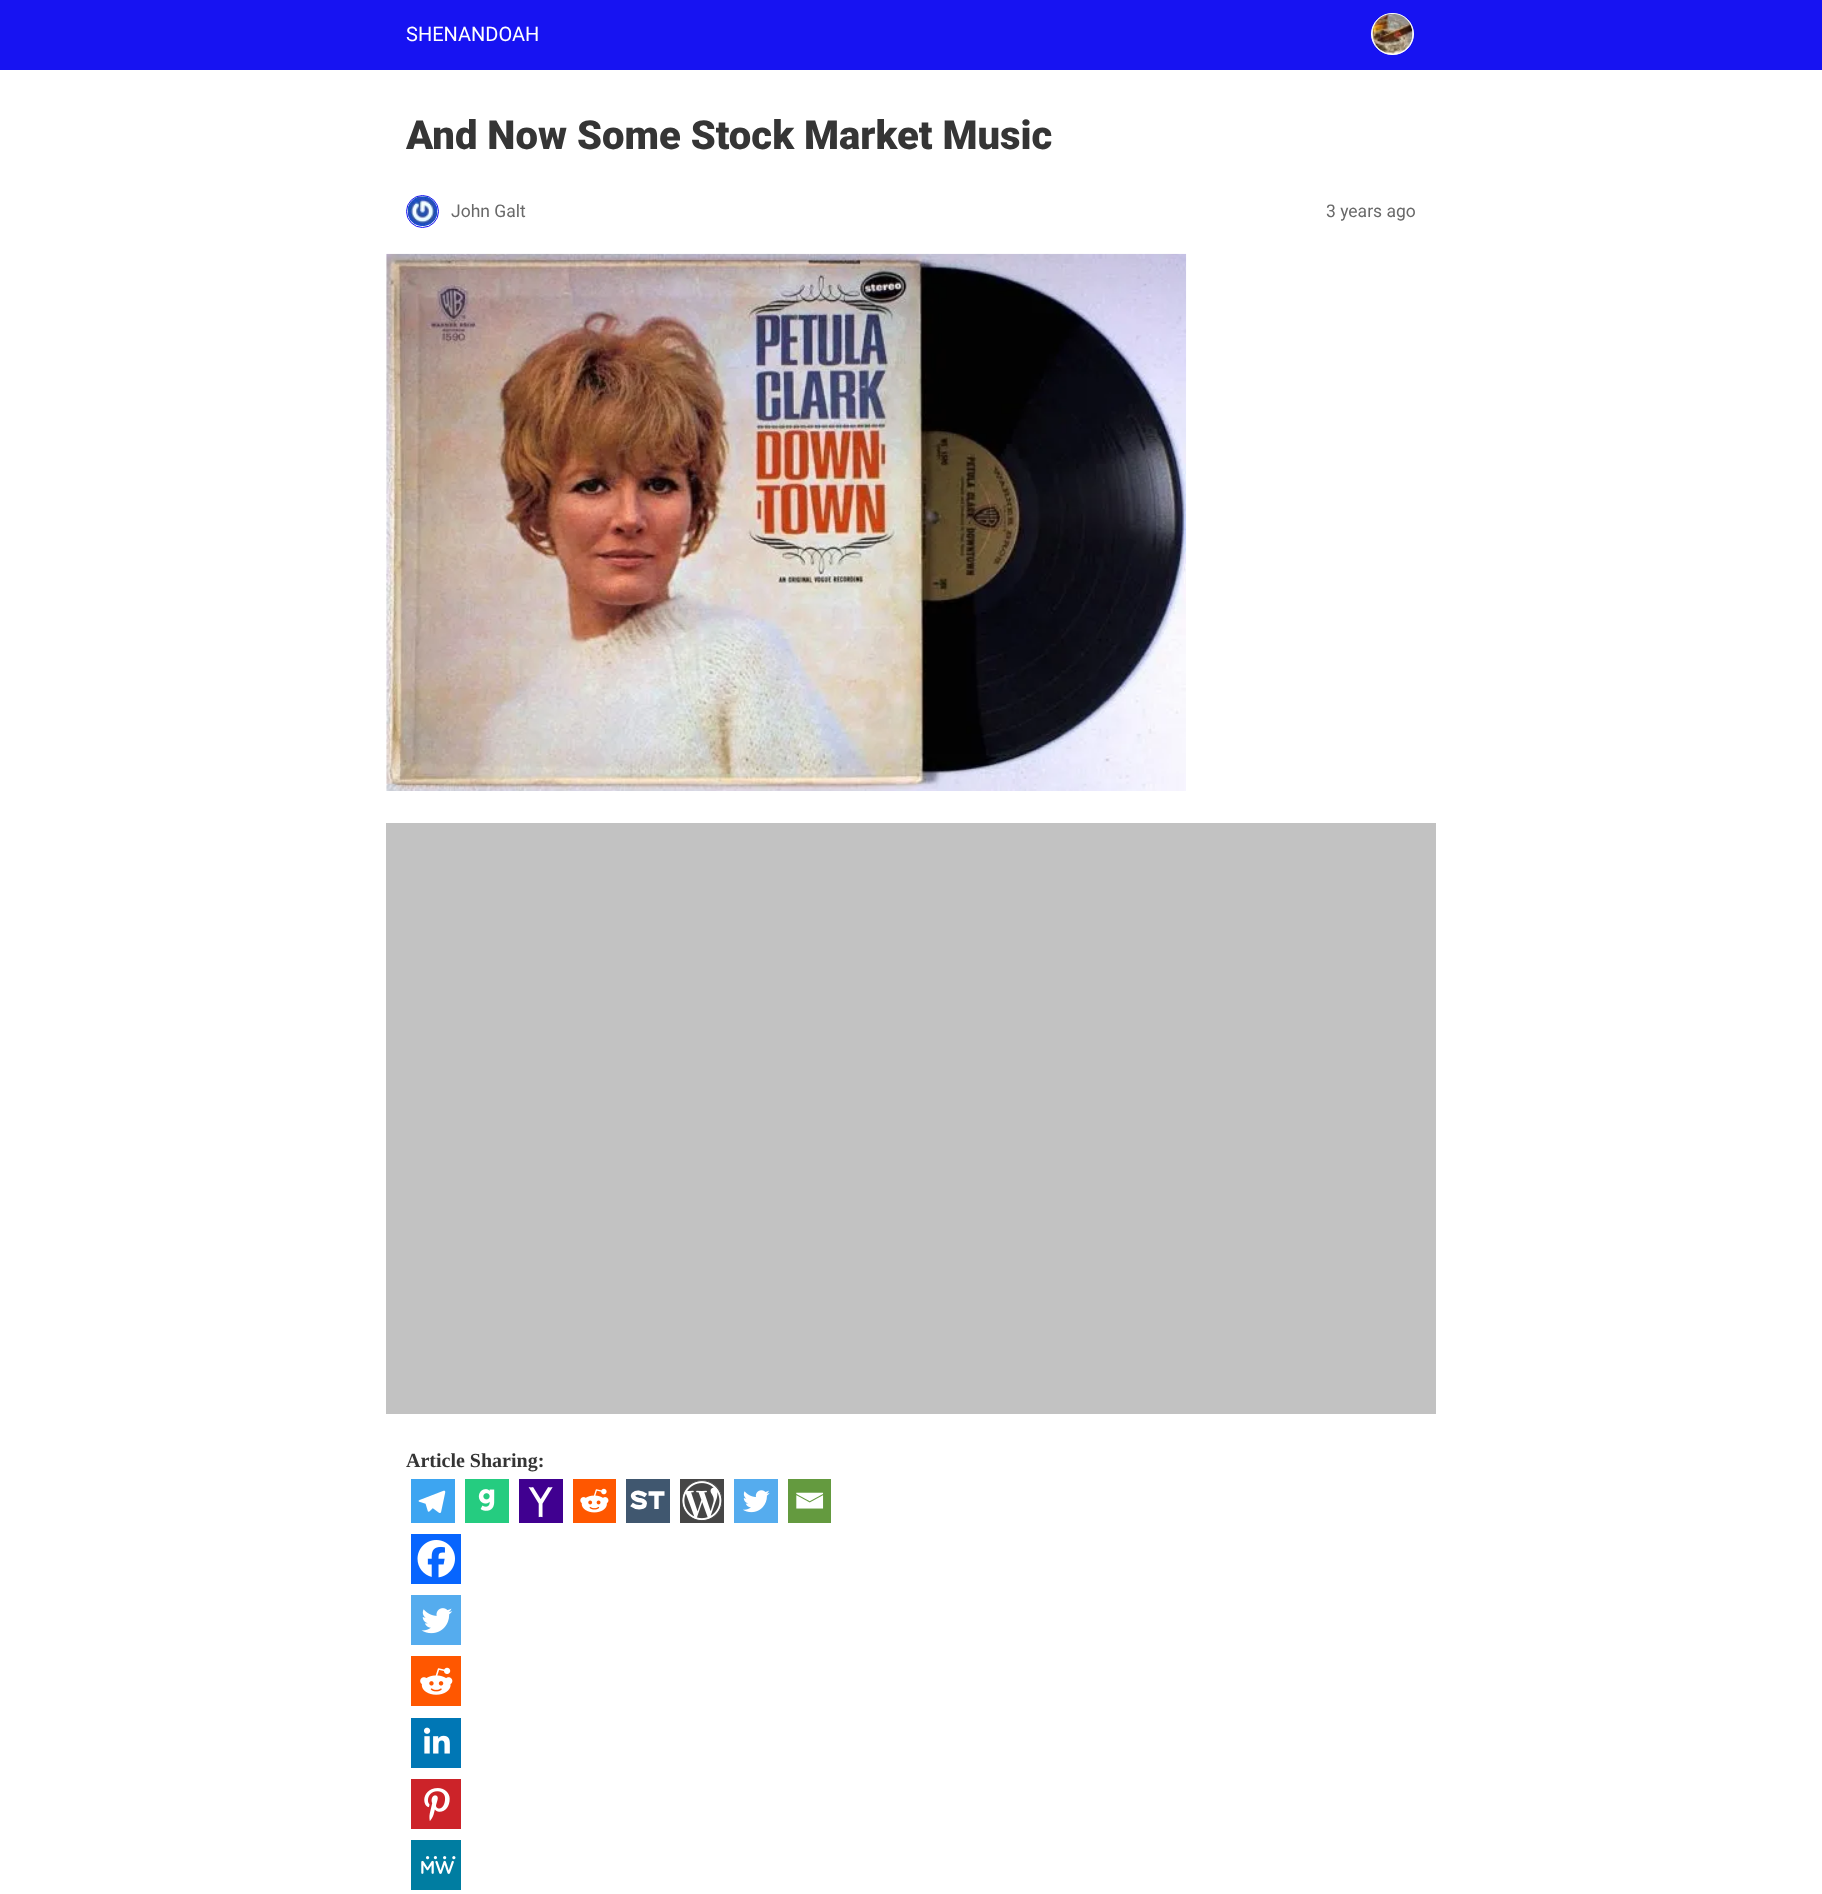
(async () => {
const canvas = document.querySelector("canvas")
canvas.width = 1822
canvas.height = 1894
const c = canvas.getContext("2d")
c.miterLimit = 4
c.fontKerning = "normal"
function T(s,x,y){c.fillText(s,x,y)}
function R(x,y,w,h){c.fillRect(x,y,w,h)}
async function I(src,x,y,w,h){const img=new Image();img.src=src;await img.decode();c.drawImage(img,x,y,w,h)}
let path
c.fillStyle="#fff"
R(0,0,1822,1894)
c.fillStyle="#1713f2"
R(0,0,1822,70)
c.font="20px Roboto"
c.fillStyle="#fff"
T("SHENANDOAH",406,41)
c.beginPath()
c.roundRect(1371.5,13.5,42,41,20.5)
c.fill()
c.strokeStyle="#fff"
c.stroke()
await I("1.png",1372,13,41,41)
c.font="900 40px Roboto"
c.fillStyle="#353535"
T("And Now Some Stock Market Music",406,149)
c.beginPath()
c.arc(422.5,211.5,16,0,7)
c.strokeStyle="#1713f2"
c.stroke()
await I("2.png",407,196,31,31)
c.font="17.5px Roboto"
c.fillStyle="#696969"
T("John Galt",451,217)
T("3 years ago",1326,217)
await I("3.png",386,253,801,538)
c.fillStyle="#c2c2c2"
R(386,823,1050,591)
c.font="bold 20px Liberation Serif"
c.fillStyle="#353535"
T("Article Sharing:",406,1467)
c.fillStyle="#3da5f1"
R(411,1479,44,44)
await I("4.png",418,1490,28,23)
c.fillStyle="#25cc80"
R(465,1479,44,44)
await I("5.png",478,1489,17,22)
c.fillStyle="#400090"
R(519,1479,44,44)
await I("6.png",528,1487,25,31)
c.fillStyle="#ff5700"
R(573,1479,43,44)
await I("7.png",580,1488,29,25)
c.fillStyle="#40576f"
R(626,1479,44,44)
path = new Path2D("M646 1495.5c-11-7.5-18.5 2-7.5 4.5c1 0 7.5 .5 6 4.5c0 2-6 5-13 0m17-11h16m-8 0v15.5")
c.strokeStyle="#fff"
c.lineWidth=4.4
c.stroke(path)
c.fillStyle="#464646"
R(680,1479,44,44)
await I("8.png",682,1480,40,41)
c.fillStyle="#55acee"
R(734,1479,44,44)
await I("9.png",743,1490,27,23)
c.fillStyle="#649a3f"
R(788,1479,43,44)
await I("10.png",796,1492,28,17)
c.fillStyle="#0765fe"
R(411,1534,50,50)
await I("11.png",417,1540,38,38)
c.fillStyle="#55acee"
R(411,1595,50,50)
await I("12.png",421,1608,32,26)
c.fillStyle="#ff5700"
R(411,1656,50,50)
await I("13.png",420,1667,33,28)
c.fillStyle="#0077b5"
R(411,1718,50,50)
await I("14.png",424,1727,26,27)
c.fillStyle="#cc2329"
R(411,1779,50,50)
await I("15.png",424,1788,26,33)
c.fillStyle="#007da1"
R(411,1840,50,50)
await I("16.png",421,1856,35,18)
})()
